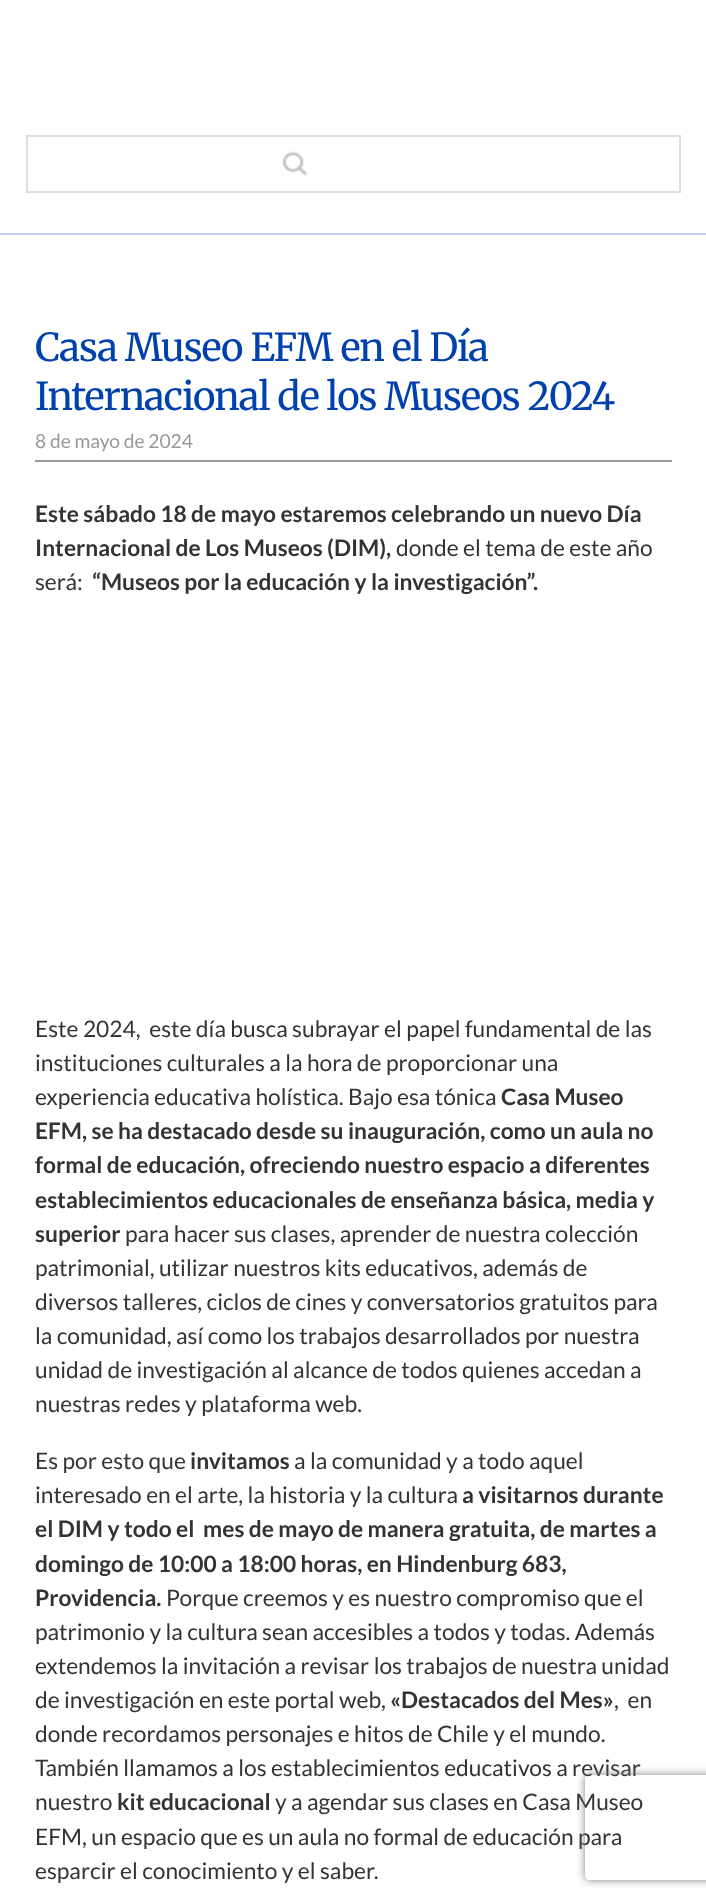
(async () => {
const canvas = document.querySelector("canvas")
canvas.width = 706
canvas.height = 1903
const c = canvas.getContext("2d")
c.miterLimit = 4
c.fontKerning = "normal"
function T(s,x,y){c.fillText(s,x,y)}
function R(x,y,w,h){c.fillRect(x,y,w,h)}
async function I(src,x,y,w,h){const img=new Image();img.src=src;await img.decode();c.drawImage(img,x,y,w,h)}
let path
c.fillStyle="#fff"
R(0,0,706,1903)
c.strokeStyle="#dfdfdf"
c.lineWidth=2
c.strokeRect(27,136,653,56)
await I("1.png",282,151,26,25)
c.fillStyle="#bfd0eb"
R(0,233,706,2)
c.letterSpacing="-1.15px"
c.font="38.5px Merriweather"
c.fillStyle="#0041ad"
T("Casa Museo EFM en el Día",35,361)
T("Internacional de los Museos 2024",35,410)
c.fillStyle="#999"
R(35,460,637,2)
c.letterSpacing="0px"
c.font="19.25px Lato"
T("8 de mayo de 2024",35,448)
c.font="bold 22.75px Lato"
c.fillStyle="#333"
T("Este sábado 18 de mayo estaremos celebrando un nuevo Día",35,522)
T("Internacional de Los Museos (DIM),",35,556)
c.font="22.75px Lato"
T("donde el tema de este año",396,556)
T("será:",35,590)
c.font="bold 22.75px Lato"
T("“Museos por la educación y la investigación”.",92,590)
c.font="22.75px Lato"
T("Este 2024,  este día busca subrayar el papel fundamental de las",35,1037)
T("instituciones culturales a la hora de proporcionar una",35,1071)
T("experiencia educativa holística. Bajo esa tónica",35,1105)
c.font="bold 22.75px Lato"
T("Casa Museo",501,1105)
T("EFM, se ha destacado desde su inauguración, como un aula no",35,1139)
T("formal de educación, ofreciendo nuestro espacio a diferentes",35,1173)
T("establecimientos educacionales de enseñanza básica, media y",35,1208)
T("superior",35,1242)
c.font="22.75px Lato"
T("para hacer sus clases, aprender de nuestra colección",125,1242)
T("patrimonial, utilizar nuestros kits educativos, además de",35,1276)
T("diversos talleres, ciclos de cines y conversatorios gratuitos para",35,1310)
T("la comunidad, así como los trabajos desarrollados por nuestra",35,1344)
T("unidad de investigación al alcance de todos quienes accedan a",35,1378)
T("nuestras redes y plataforma web.",35,1412)
T("Es por esto que",35,1469)
c.font="bold 22.75px Lato"
T("invitamos",190,1469)
c.font="22.75px Lato"
T("a la comunidad y a todo aquel",294,1469)
T("interesado en el arte, la historia y la cultura",35,1503)
c.font="bold 22.75px Lato"
T("a visitarnos durante",462,1503)
T("el DIM y todo el  mes de mayo de manera gratuita, de martes a",35,1537)
T("domingo de 10:00 a 18:00 horas, en Hindenburg 683,",35,1572)
T("Providencia.",35,1606)
c.font="22.75px Lato"
T("Porque creemos y es nuestro compromiso que el",166,1606)
T("patrimonio y la cultura sean accesibles a todos y todas. Además",35,1640)
T("extendemos la invitación a revisar los trabajos de nuestra unidad",35,1674)
T("de investigación en este portal web,",35,1708)
c.font="bold 22.75px Lato"
T("«Destacados del Mes»",390,1708)
c.font="22.75px Lato"
T(",  en",614,1708)
T("donde recordamos personajes e hitos de Chile y el mundo.",35,1742)
T("También llamamos a los establecimientos educativos a revisar",35,1776)
T("nuestro",35,1810)
c.font="bold 22.75px Lato"
T("kit educacional",117,1810)
c.font="22.75px Lato"
T("y a agendar sus clases en Casa Museo",275,1810)
T("EFM, un espacio que es un aula no formal de educación para",35,1845)
T("esparcir el conocimiento y el saber.",35,1879)
c.save()
path = new Path2D("M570 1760h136v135h-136zm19 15h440c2 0 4 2 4 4v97c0 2-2 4-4 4h-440c-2 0-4-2-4-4v-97c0-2 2-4 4-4z")
c.clip(path,"evenodd")
c.fillStyle="#808080"
c.filter="blur(4.5px)"
c.beginPath()
c.roundRect(585,1775,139,105,4)
c.fill()
c.filter="none"
c.restore()
})()
